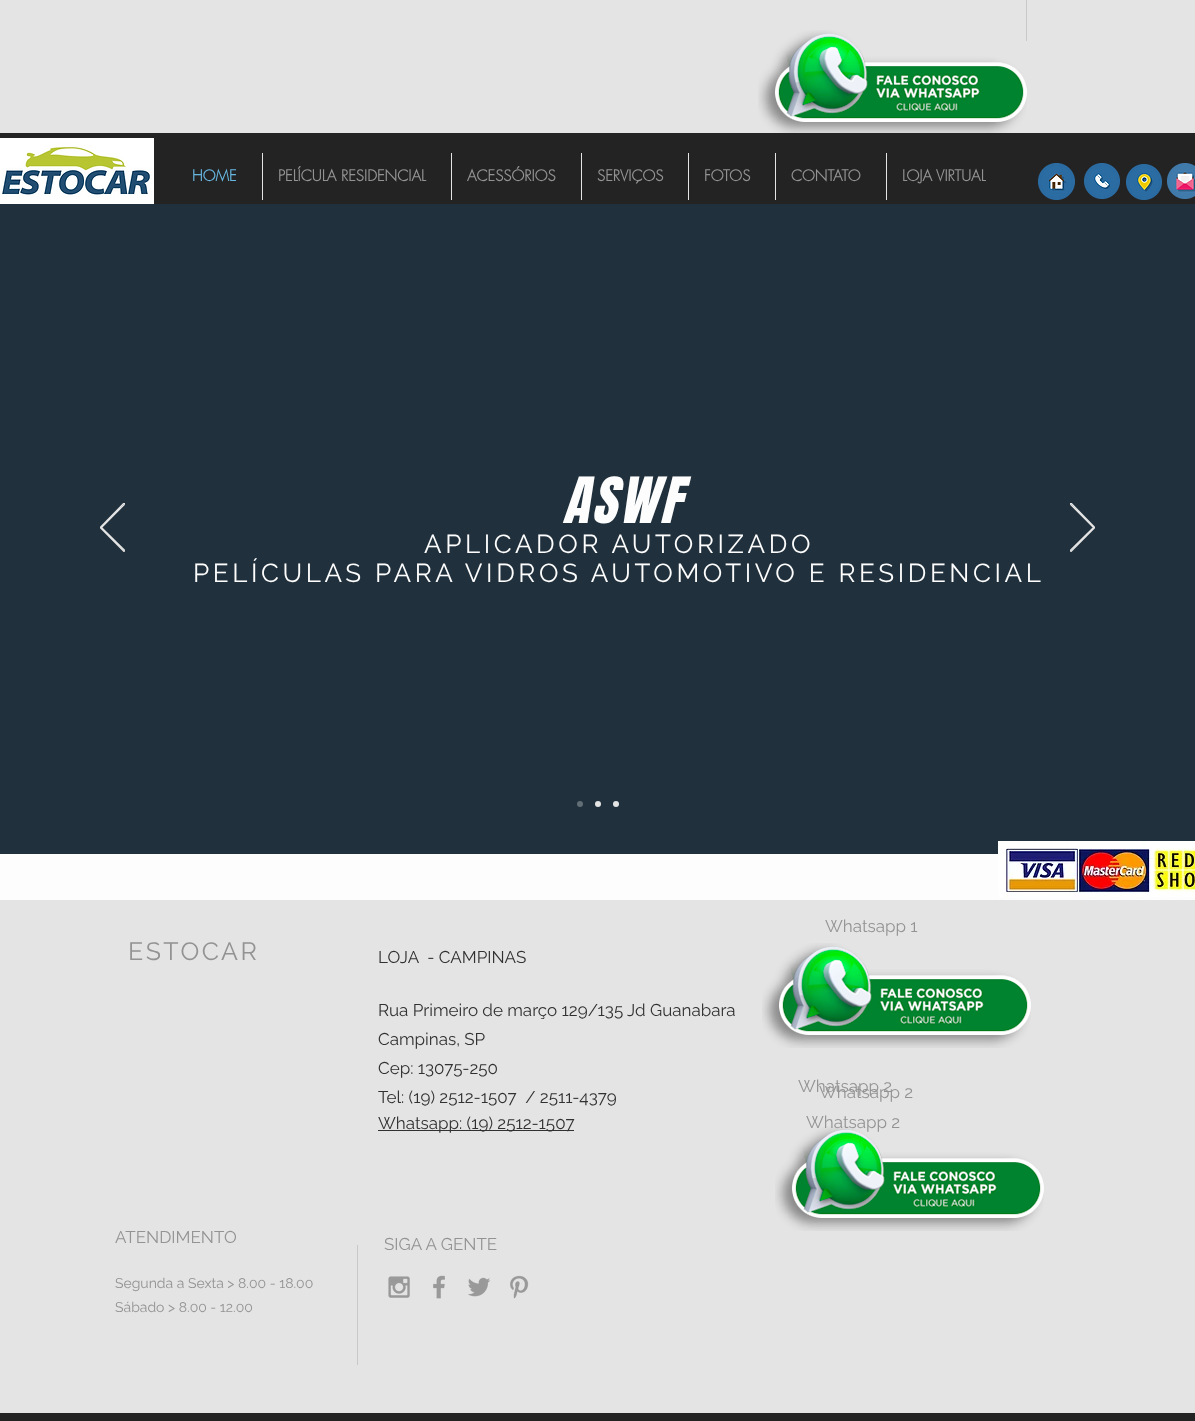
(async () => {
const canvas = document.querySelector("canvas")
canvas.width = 1195
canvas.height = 1421
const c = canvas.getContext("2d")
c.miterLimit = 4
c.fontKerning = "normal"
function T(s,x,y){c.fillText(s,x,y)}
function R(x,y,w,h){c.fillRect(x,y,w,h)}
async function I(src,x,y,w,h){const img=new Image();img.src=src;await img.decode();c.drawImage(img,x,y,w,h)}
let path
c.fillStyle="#fdfdfd"
R(0,0,1195,1421)
c.fillStyle="#e4e4e4"
R(0,0,1195,133)
c.fillStyle="#c8c8c8"
R(1026,0,1,41)
await I("1.png",758,30,269,103)
c.fillStyle="#242323"
R(0,133,1195,71)
await I("2.png",0,138,154,66)
c.font="bold 15px futura"
c.fillStyle="#67b6e0"
T("HOME",192,181)
c.fillStyle="#e4e4e4"
R(262,153,1,47)
c.fillStyle="#939393"
T("PELÍCULA RESIDENCIAL",278,181)
c.fillStyle="#e4e4e4"
R(451,153,1,47)
c.fillStyle="#939393"
T("ACESSÓRIOS",467,181)
c.fillStyle="#e4e4e4"
R(581,153,1,47)
c.fillStyle="#939393"
T("SERVIÇOS",597,181)
c.fillStyle="#e4e4e4"
R(688,153,1,47)
c.fillStyle="#939393"
T("FOTOS",704,181)
c.fillStyle="#e4e4e4"
R(775,153,1,47)
c.fillStyle="#939393"
T("CONTATO",791,181)
c.fillStyle="#e4e4e4"
R(886,153,1,47)
c.fillStyle="#939393"
T("LOJA VIRTUAL",902,181)
await I("3.png",1038,163,37,37)
await I("4.png",1084,163,36,36)
await I("5.png",1126,164,36,36)
await I("6.png",1167,163,28,36)
c.fillStyle="#20303c"
R(0,204,1195,650)
c.save()
c.beginPath()
c.rect(100,503,25,49)
c.clip()
path = new Path2D("M124 551.5l-24-24l24-24.5l1 1l-23.5 23.5l23.5 23z")
c.strokeStyle="#e4e4e4"
c.lineWidth=1.2
c.stroke(path)
c.restore()
c.letterSpacing="2.5px"
c.font="italic 54px Anton"
c.fillStyle="#fdfdfd"
T("ASWF",562,523)
c.letterSpacing="3.6px"
c.font="26px Raleway"
T("APLICADOR AUTORIZADO",424,553)
T("PELÍCULAS PARA VIDROS AUTOMOTIVO E RESIDENCIAL",193,582)
c.save()
c.beginPath()
c.rect(1070,503,25,49)
c.clip()
path = new Path2D("M1071 551.5l24-24l-24-24.5l-1 1l23.5 23.5l-23.5 23z")
c.strokeStyle="#e4e4e4"
c.lineWidth=1.2
c.stroke(path)
c.restore()
c.fillStyle="#626e76"
c.beginPath()
c.arc(580,804,3,0,7)
c.fill()
c.fillStyle="#e4e4e4"
c.beginPath()
c.arc(598,804,3,0,7)
c.fill()
c.beginPath()
c.arc(616,804,3,0,7)
c.fill()
await I("7.png",998,841,197,56)
R(0,900,1195,513)
c.letterSpacing="0px"
c.font="17px Raleway"
c.fillStyle="#939393"
T("Whatsapp 1",825,932)
c.letterSpacing="2.5px"
c.font="25px Raleway"
T("ESTOCAR",128,960)
c.letterSpacing="0px"
c.font="17px Raleway"
c.fillStyle="#313131"
T("LOJA  - CAMPINAS",378,963)
T("Rua Primeiro de março 129/135 Jd Guanabara",378,1016)
T("Campinas, SP",378,1045)
T("Cep: 13075-250",378,1074)
T("Tel: (19) 2512-1507  / 2511-4379",378,1103)
R(378,1130,196,1)
T("Whatsapp: (19) 2512-1507",378,1129)
await I("8.png",762,943,269,105)
c.fillStyle="#939393"
T("Whatsapp 2",798,1092)
T("Whatsapp 2",819,1098)
await I("8.png",775,1126,269,105)
T("Whatsapp 2",806,1128)
T("ATENDIMENTO",115,1243)
c.font="14px Raleway"
T("Segunda a Sexta > 8.00 - 18.00",115,1288)
T("Sábado > 8.00 - 12.00",115,1312)
c.fillStyle="#c8c8c8"
R(357,1245,1,120)
c.font="17px Raleway"
c.fillStyle="#939393"
T("SIGA A GENTE",384,1250)
await I("9.png",388,1276,22,22)
await I("10.png",433,1275,12,24)
await I("11.png",468,1277,23,20)
await I("12.png",510,1275,19,24)
c.fillStyle="#242323"
R(0,1413,1195,8)
})()
